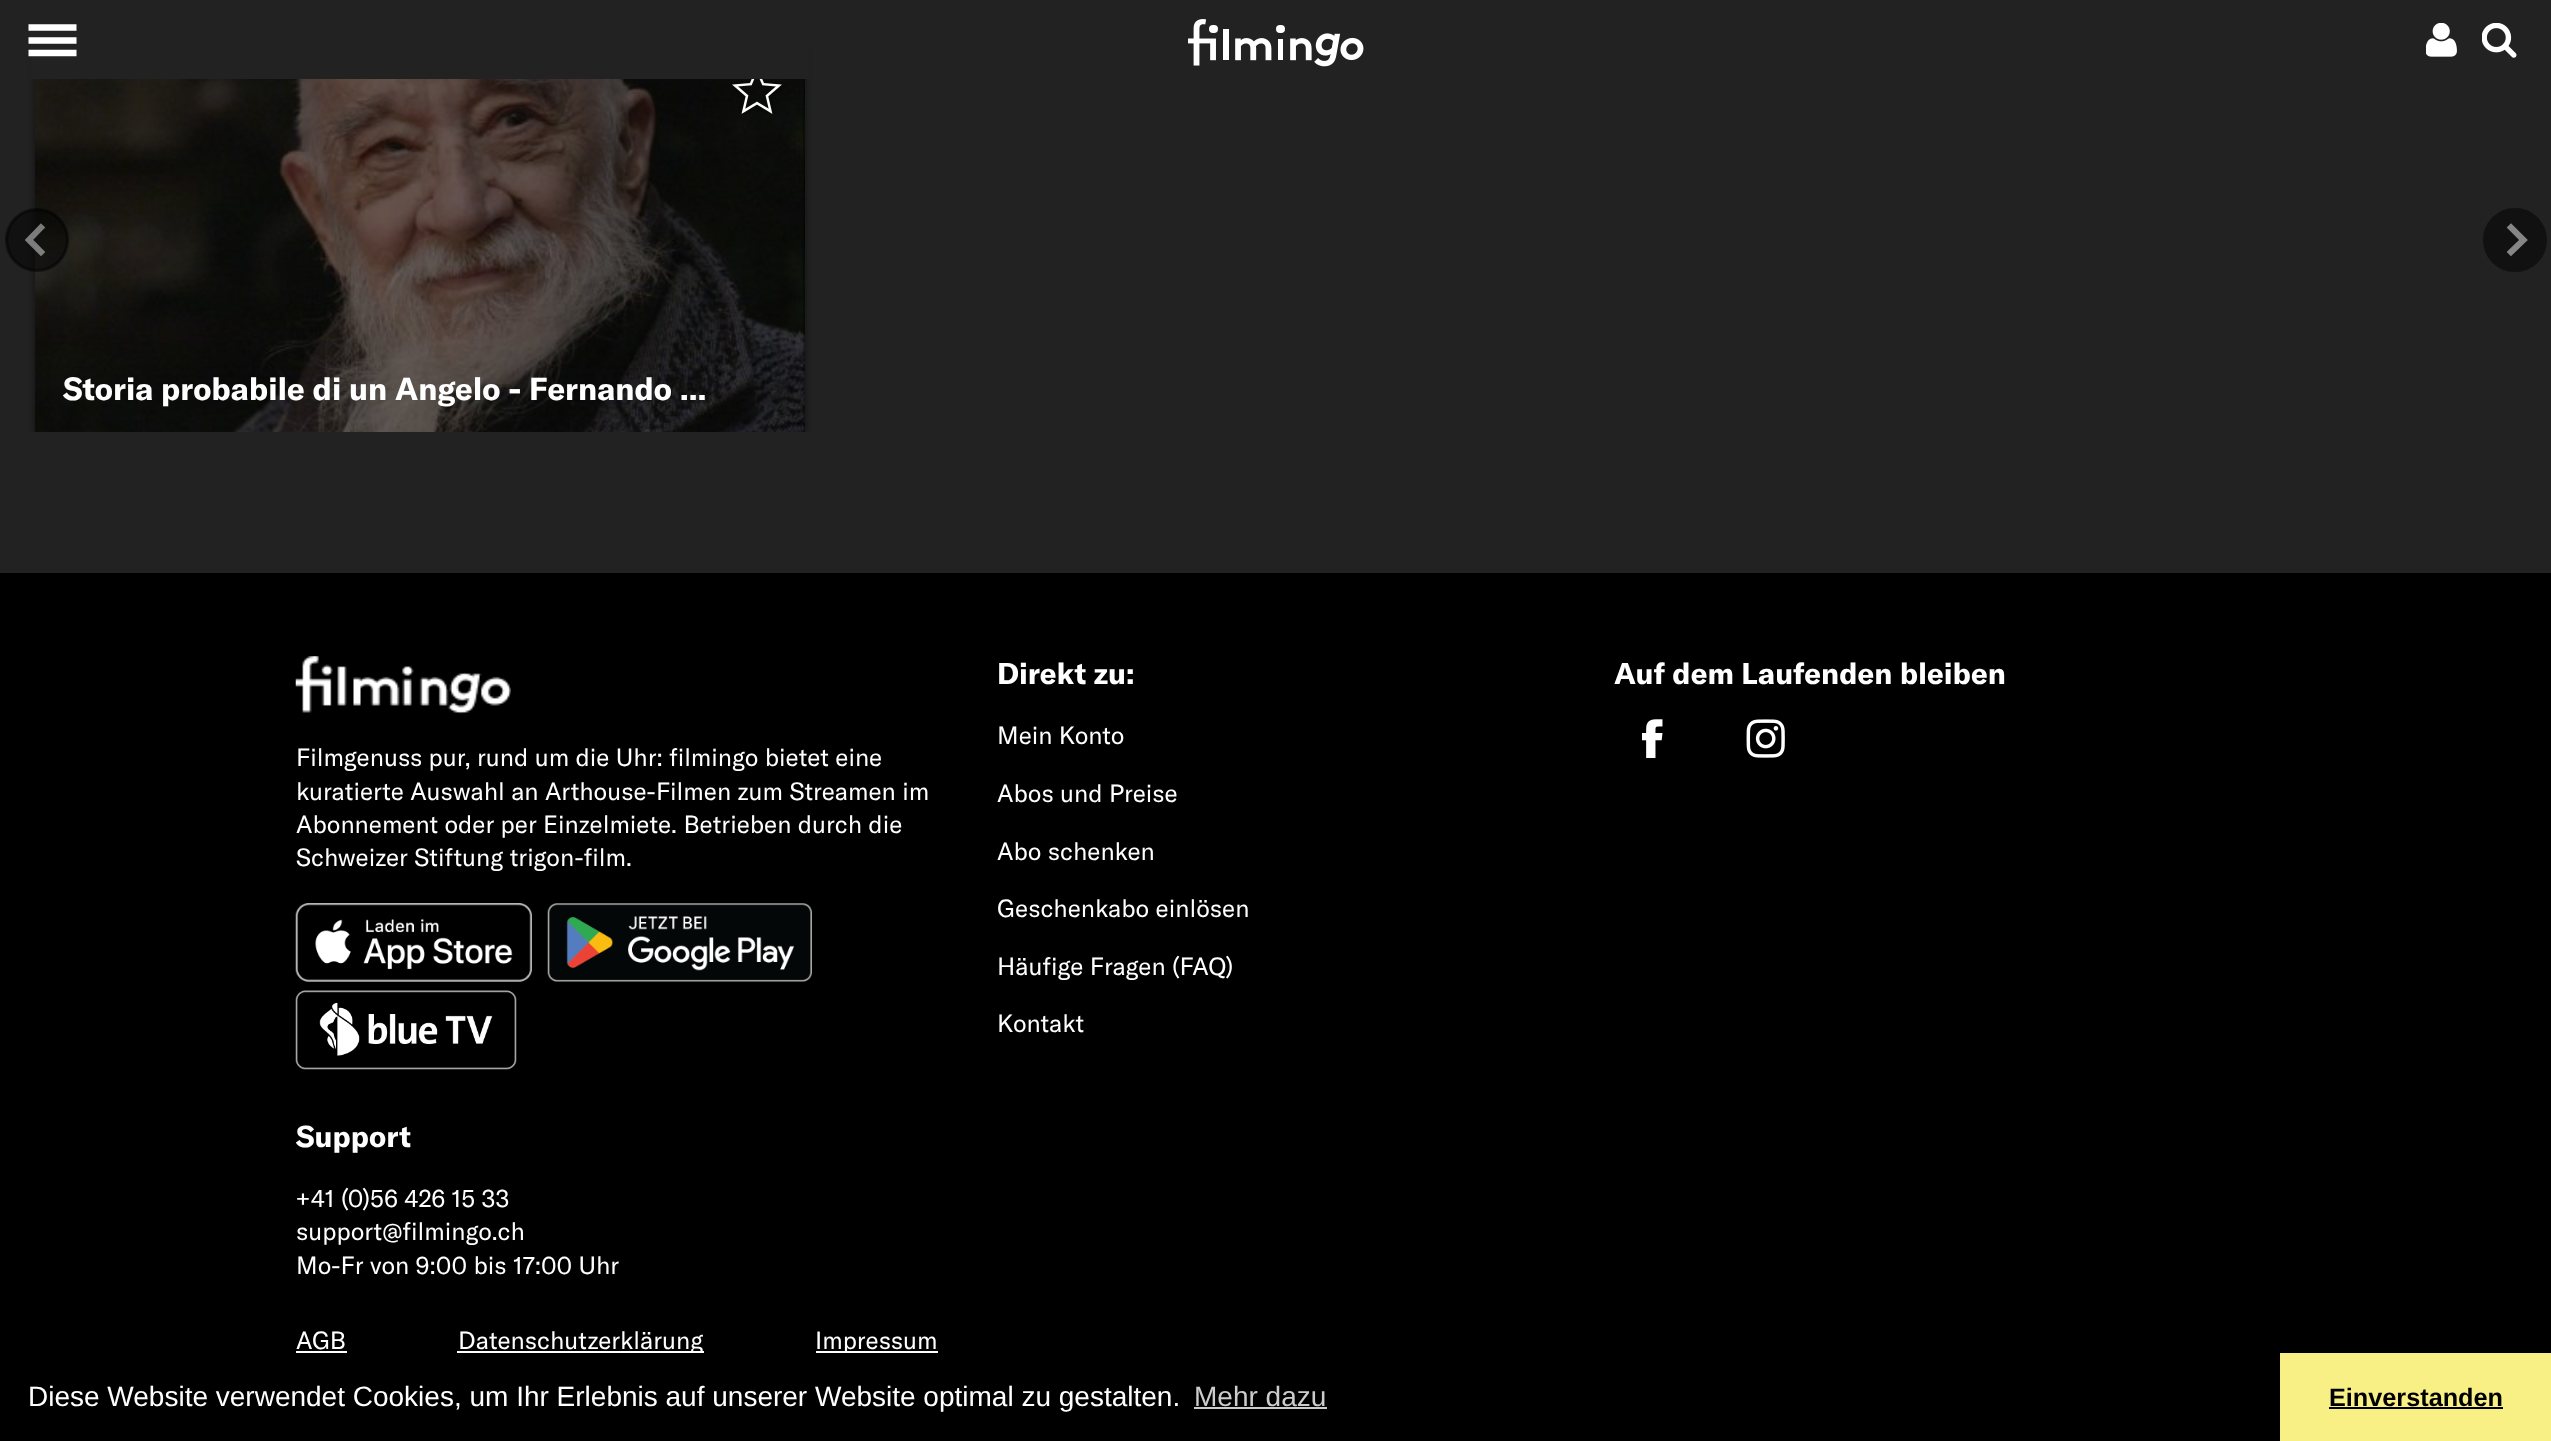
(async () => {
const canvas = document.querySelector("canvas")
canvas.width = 2551
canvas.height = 1441
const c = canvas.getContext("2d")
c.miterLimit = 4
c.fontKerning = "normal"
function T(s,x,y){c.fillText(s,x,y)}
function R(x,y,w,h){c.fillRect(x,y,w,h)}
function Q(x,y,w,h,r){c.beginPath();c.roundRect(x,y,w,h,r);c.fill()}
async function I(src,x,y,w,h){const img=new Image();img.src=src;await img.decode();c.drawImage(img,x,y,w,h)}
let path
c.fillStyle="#222"
R(0,0,2551,1441)
c.fillStyle="#fff"
Q(1209,25,9,8,4)
Q(1276,25,9,8,4)
await I("1.png",1188,19,176,48)
c.save()
c.beginPath()
c.rect(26,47,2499,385)
c.clip()
c.fillStyle="#00000080"
c.filter="blur(3.5px)"
c.beginPath()
c.rect(35,51,770,385)
c.fill()
c.filter="none"
c.restore()
c.fillStyle="#222"
R(31,47,778,32)
await I("2.png",2426,23,31,34)
await I("3.png",2482,23,35,35)
path = new Path2D("M28.5 27.5h48m-48 13h48m-48 12.5h48")
c.strokeStyle="#fff"
c.lineWidth=6.4
c.stroke(path)
await I("4.png",35,79,770,353)
c.fillStyle="#00000080"
c.beginPath()
c.arc(37,240,30.5,0,7)
c.fill()
c.strokeStyle="#00000080"
c.lineWidth=3.1
c.stroke()
path = new Path2D("M41 227.5l-12 12.5l12 12")
c.strokeStyle="#e9e9e980"
c.lineWidth=6.1
c.lineCap="square"
c.stroke(path)
c.fillStyle="#111"
c.beginPath()
c.arc(2515,240,30.5,0,7)
c.fill()
c.strokeStyle="#111"
c.lineWidth=3.1
c.stroke()
path = new Path2D("M2511 252l12.5-12l-12.5-12.5")
c.strokeStyle="#868686"
c.lineWidth=6.1
c.stroke(path)
await I("5.png",732,79,50,35)
c.font="bold 31.5px GT America"
c.fillStyle="#fff"
T("Storia probabile di un Angelo - Fernando …",63,400)
c.fillStyle="#000"
R(0,573,2551,780)
c.font="bold 29.75px GT America"
c.fillStyle="#fff"
T("Direkt zu:",997,684)
c.font="24.5px GT America"
T("Mein Konto",997,744)
T("Abos und Preise",997,802)
T("Abo schenken",997,860)
T("Geschenkabo einlösen",997,917)
T("Häufige Fragen (FAQ)",997,975)
T("Kontakt",997,1032)
c.font="bold 29.75px GT America"
T("Auf dem Laufenden bleiben",1614,684)
await I("6.png",1642,719,21,39)
await I("7.png",1746,719,39,39)
await I("8.png",295,656,216,58)
c.font="24.5px GT America"
T("Filmgenuss pur, rund um die Uhr: filmingo bietet eine",296,766)
T("kuratierte Auswahl an Arthouse-Filmen zum Streamen im",296,800)
T("Abonnement oder per Einzelmiete. Betrieben durch die",296,833)
T("Schweizer Stiftung trigon-film.",296,866)
await I("9.png",295,903,237,79)
await I("10.png",547,903,265,79)
await I("11.png",295,990,222,80)
c.font="bold 29.75px GT America"
T("Support",296,1147)
c.font="24.5px GT America"
T("+41 (0)56 426 15 33",296,1207)
T("support@filmingo.ch",296,1240)
T("Mo-Fr von 9:00 bis 17:00 Uhr",296,1274)
T("AGB",296,1349)
R(296,1351,51,2)
R(457,1351,247,2)
T("Datenschutzerklärung",458,1349)
R(816,1351,122,2)
T("Impressum",815,1349)
c.fillStyle="#000"
R(0,1353,2280,88)
c.font="28px Liberation Sans"
c.fillStyle="#fff"
T("Diese Website verwendet Cookies, um Ihr Erlebnis auf unserer Website optimal zu gestalten.",28,1406)
c.fillStyle="#ccc"
T("Mehr dazu",1194,1406)
R(1194,1407,133,2)
c.fillStyle="#f8ef85"
R(2280,1353,271,88)
c.font="bold 25.25px Liberation Sans"
c.fillStyle="#000"
T("Einverstanden",2329,1406)
R(2329,1407,174,2)
})()
